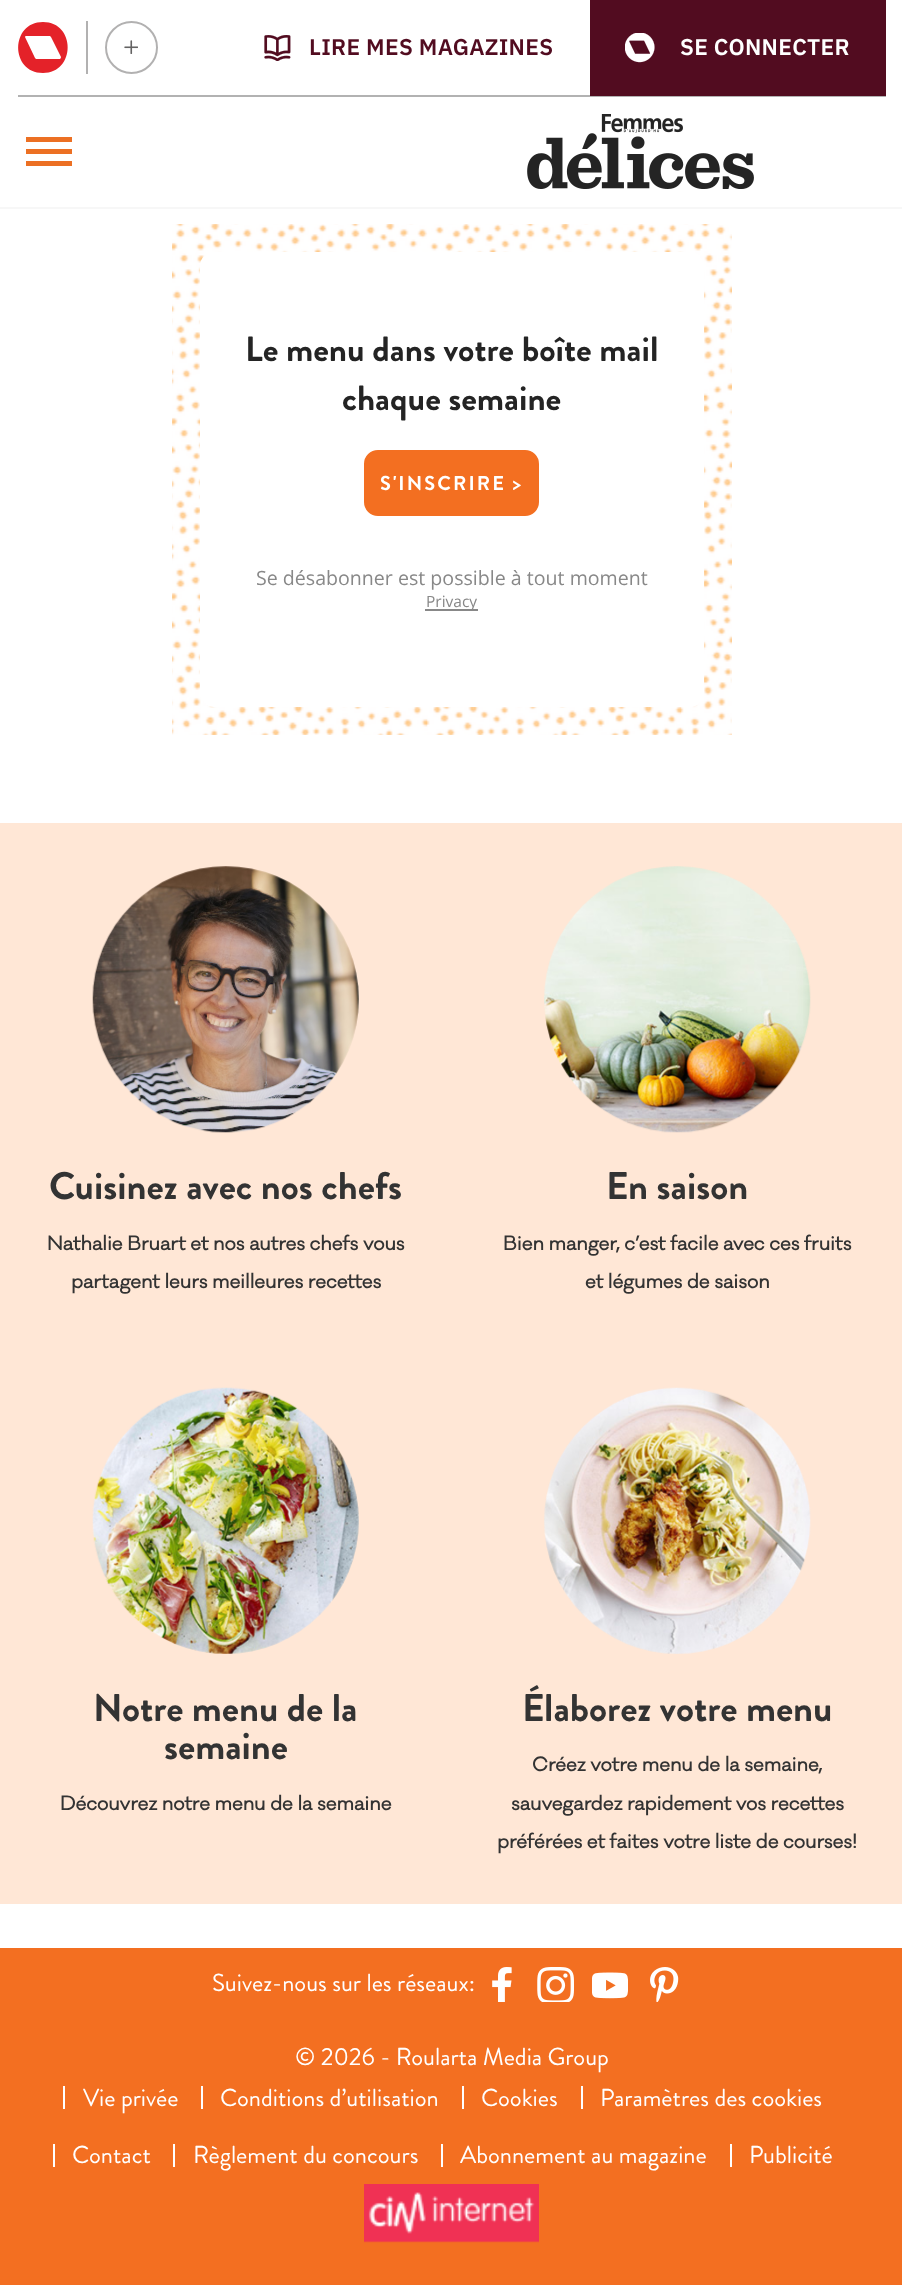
(async () => {
const canvas = document.querySelector("canvas")
canvas.width = 902
canvas.height = 2285
const c = canvas.getContext("2d")
c.miterLimit = 4
c.fontKerning = "normal"
function T(s,x,y){c.fillText(s,x,y)}
function R(x,y,w,h){c.fillRect(x,y,w,h)}
function Q(x,y,w,h,r){c.beginPath();c.roundRect(x,y,w,h,r);c.fill()}
async function I(src,x,y,w,h){const img=new Image();img.src=src;await img.decode();c.drawImage(img,x,y,w,h)}
let path
c.fillStyle="#fff"
R(0,0,902,2285)
c.fillStyle="#f7f7f7"
R(0,207,902,2)
c.fillStyle="#b2b2b2"
R(18,95,868,2)
c.fillStyle="#b2b1b1"
R(86,21,2,53)
c.fillStyle="#e42229"
path = new Path2D("M60 59h-24l-1-1l-10-21c0 0 0-1 1-1h24l1 1l10 20c0 1-1 2-1 2zm-17-37c-33 0-33 51 0 51c33 0 33-51 0-51z")
c.fill(path,"evenodd")
c.beginPath()
c.arc(131.5,47.5,25.5,0,7)
c.strokeStyle="#b2b1b1"
c.lineWidth=2
c.stroke()
await I("1.png",124,40,14,14)
await I("2.png",264,35,27,26)
c.letterSpacing="0.3px"
c.font="600 22.75px IBM Plex Sans"
c.fillStyle="#520c20"
T("LIRE MES MAGAZINES",309,55)
R(590,0,296,96)
await I("3.png",625,33,30,30)
c.fillStyle="#fff"
T("SE CONNECTER",680,55)
c.save()
c.beginPath()
c.rect(26,137,46,29)
c.clip()
c.fillStyle="#ec7023"
path = new Path2D("M26 136h46v6h-46zm0 13h46v5h-46zm0 12h46v5h-46z")
c.fill(path)
c.restore()
await I("4.png",527,114,227,75)
await I("5.png",172,224,560,511)
Q(200,252,504,455,14)
c.letterSpacing="0px"
c.font="bold 35px Brandon Grotesque"
c.fillStyle="#242424"
T("Le menu dans votre boîte mail",245,361)
T("chaque semaine",342,410)
c.fillStyle="#f36f21"
c.beginPath()
c.roundRect(365,451,173,64,13)
c.fill()
c.strokeStyle="#f36f21"
c.stroke()
c.letterSpacing="2.1px"
c.font="bold 20px Brandon Grotesque"
c.fillStyle="#fff"
T("S'INSCRIRE >",380,490)
c.letterSpacing="0px"
c.font="19.6px Open Sans"
c.fillStyle="#888"
T("Se désabonner est possible à tout moment",256,585)
R(425,609,53,2)
c.font="15.5px Open Sans"
T("Privacy",426,607)
c.fillStyle="#ffe7d6"
R(0,823,902,1081)
await I("6.png",92,866,267,267)
c.font="bold 38.5px Brandon Grotesque"
c.fillStyle="#333"
T("Cuisinez avec nos chefs",49,1199)
c.font="bold 18.4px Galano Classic"
T("Nathalie Bruart et nos autres chefs vous",47,1250)
T("partagent leurs meilleures recettes",71,1288)
await I("7.png",544,866,267,267)
c.font="bold 38.5px Brandon Grotesque"
T("En saison",606,1199)
c.font="bold 18.4px Galano Classic"
T("Bien manger, c’est facile avec ces fruits",503,1250)
T("et légumes de saison",585,1288)
await I("8.png",92,1387,267,267)
c.font="bold 38.5px Brandon Grotesque"
T("Notre menu de la",93,1721)
T("semaine",164,1759)
c.font="bold 18.4px Galano Classic"
T("Découvrez notre menu de la semaine",60,1810)
await I("9.png",544,1387,267,267)
c.font="bold 38.5px Brandon Grotesque"
T("Élaborez votre menu",522,1721)
c.font="bold 18.4px Galano Classic"
T("Créez votre menu de la semaine,",532,1771)
T("sauvegardez rapidement vos recettes",511,1810)
T("préférées et faites votre liste de courses!",497,1848)
c.fillStyle="#f36f21"
R(0,1948,902,337)
c.font="24.5px Brandon Grotesque"
c.fillStyle="#fff"
T("Suivez-nous sur les réseaux:",212,1991)
await I("10.png",492,1967,20,35)
await I("11.png",537,1967,37,35)
await I("12.png",592,1972,36,27)
await I("13.png",650,1967,29,35)
T("© 2026 - Roularta Media Group",295,2065)
R(63,2086,2,23)
T("Vie privée",83,2106)
R(201,2086,2,23)
T("Conditions d’utilisation",220,2106)
R(462,2086,2,23)
T("Cookies",481,2106)
R(581,2086,2,23)
T("Paramètres des cookies",600,2106)
R(53,2144,2,23)
T("Contact",72,2163)
R(173,2144,2,23)
T("Règlement du concours",193,2163)
R(441,2144,2,23)
T("Abonnement au magazine",460,2163)
R(730,2144,2,23)
T("Publicité",749,2163)
await I("14.png",364,2184,175,59)
})()
